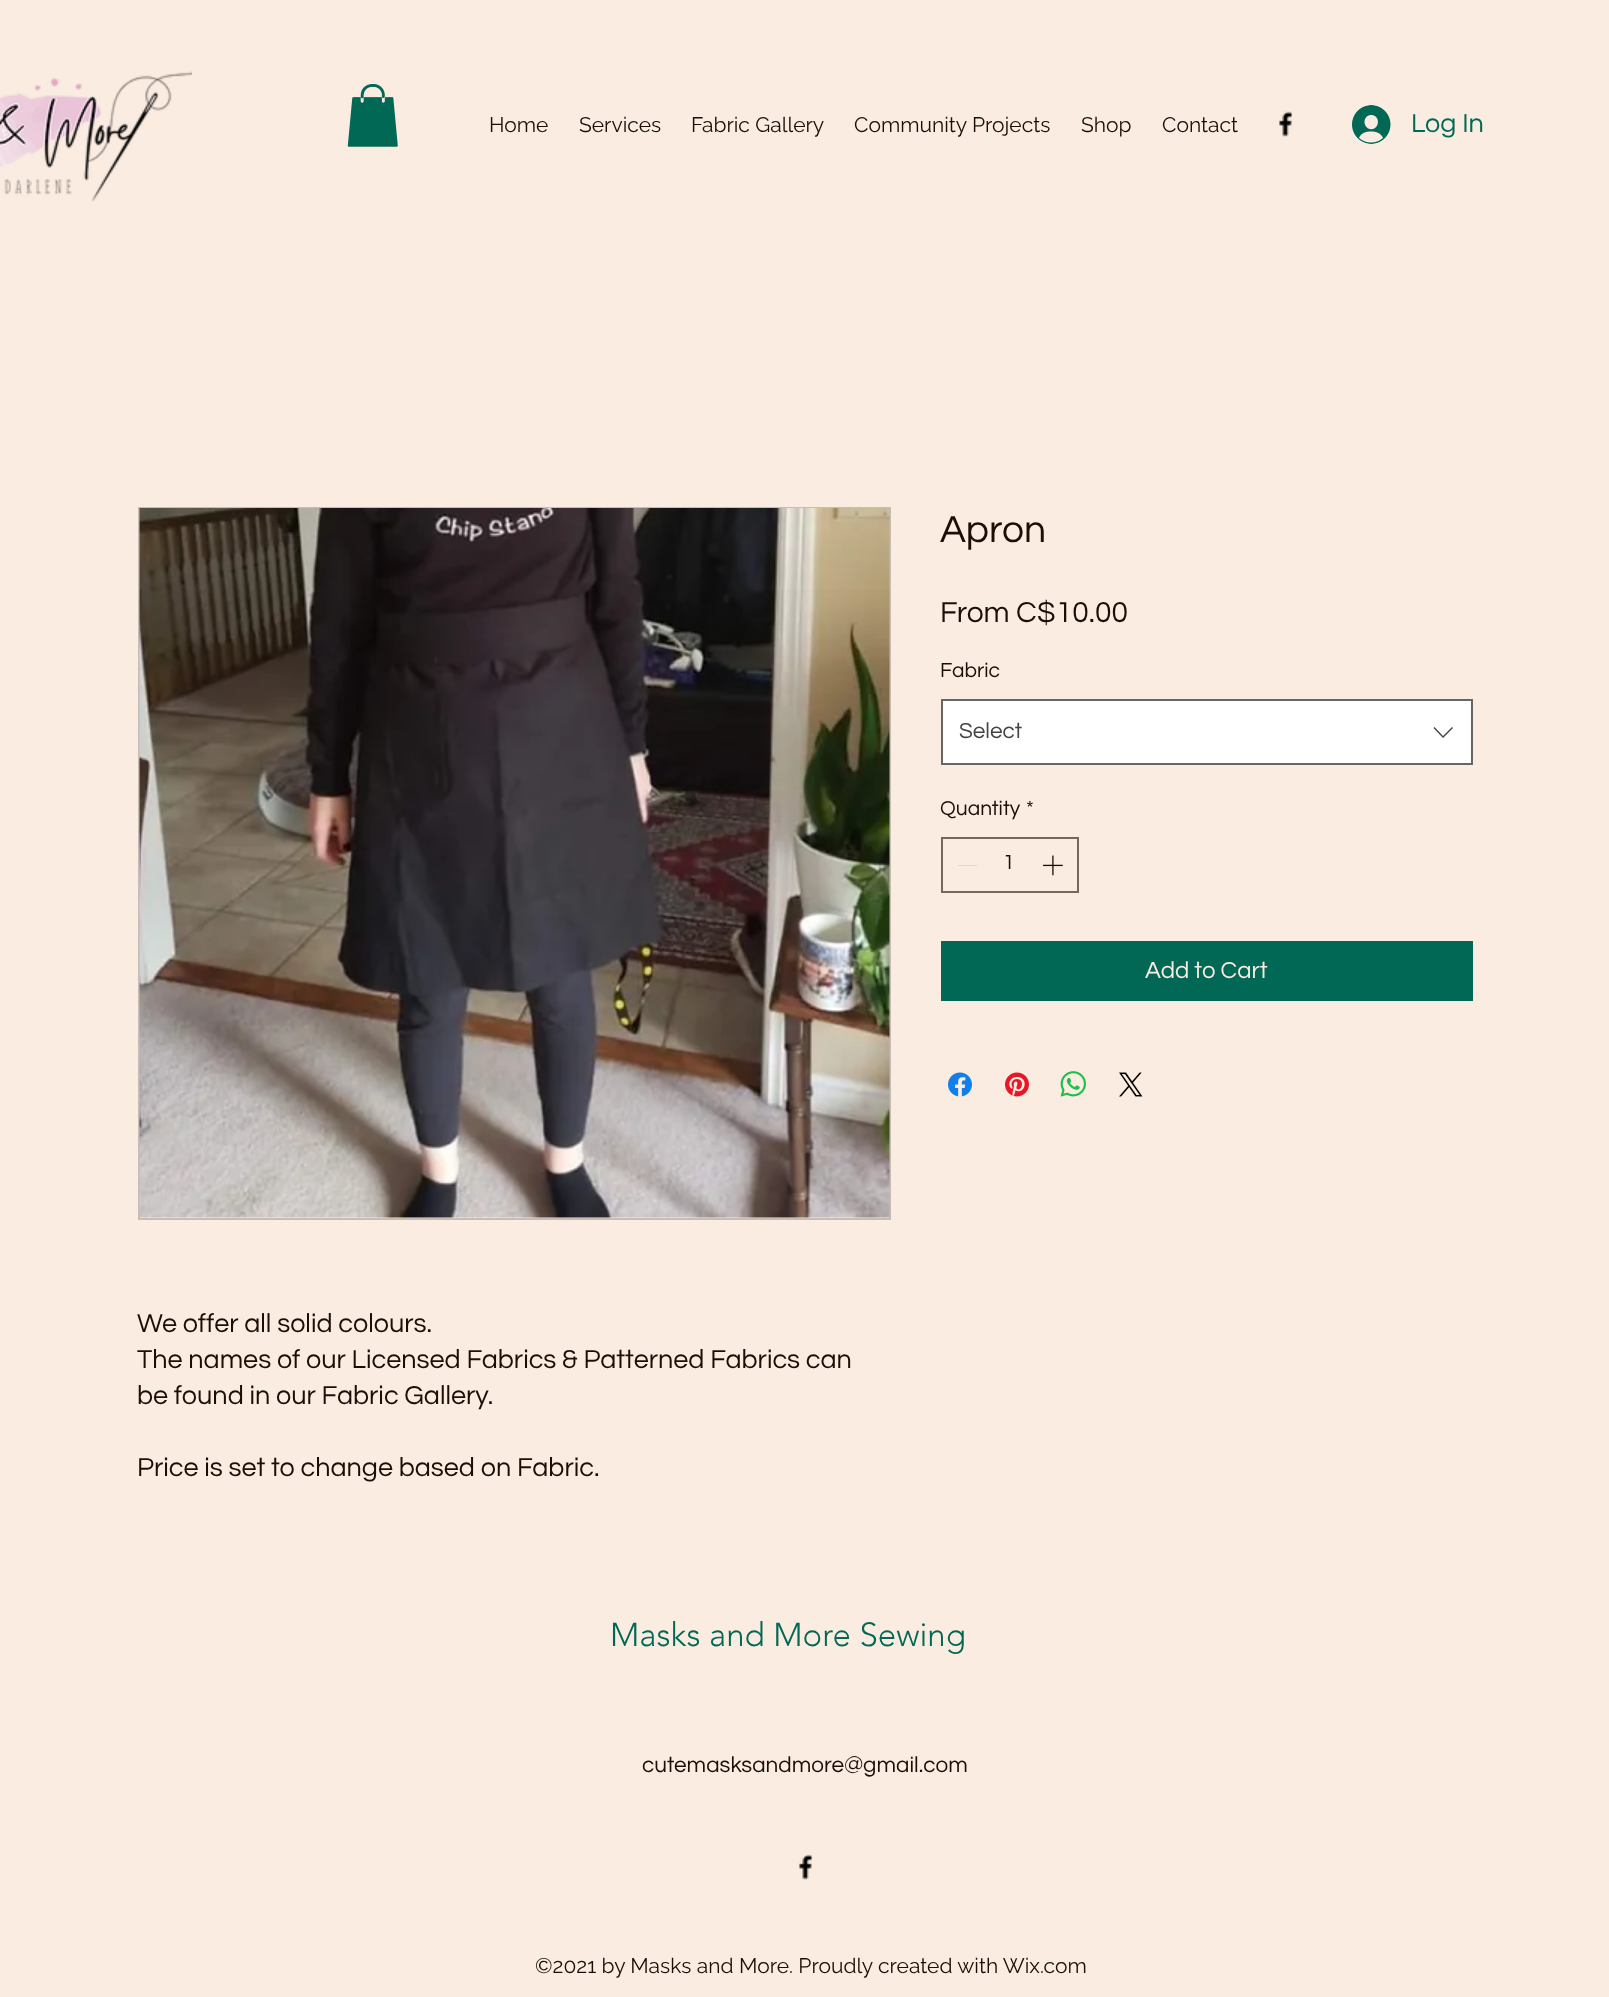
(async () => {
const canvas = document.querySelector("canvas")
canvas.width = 1609
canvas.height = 1997
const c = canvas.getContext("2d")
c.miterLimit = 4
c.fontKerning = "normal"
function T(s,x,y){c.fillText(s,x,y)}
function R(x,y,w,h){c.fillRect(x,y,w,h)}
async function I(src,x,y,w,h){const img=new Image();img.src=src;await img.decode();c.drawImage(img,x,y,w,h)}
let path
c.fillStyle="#faece1"
R(0,0,1609,1997)
await I("1.png",0,71,192,131)
await I("2.png",347,84,51,63)
c.font="21px Raleway"
c.fillStyle="#1d0e03"
T("Home",489,132)
T("Services",579,132)
T("Fabric Gallery",691,132)
T("Community Projects",854,132)
T("Shop",1081,132)
T("Contact",1162,132)
await I("3.png",1279,111,14,26)
await I("4.png",1352,105,39,39)
c.font="27px Questrial"
c.fillStyle="#016855"
T("Log In",1411,132)
c.font="39px Questrial"
c.fillStyle="#1d0e03"
T("Apron",940,542)
c.font="30px Questrial"
T("From C$10.00",940,622)
c.font="21px Questrial"
T("Fabric",940,677)
c.fillStyle="#fff"
c.beginPath()
c.rect(942,700,530,64)
c.fill()
c.strokeStyle="#666"
c.lineWidth=2
c.stroke()
c.font="22.5px Questrial"
c.fillStyle="#444"
T("Select",959,738)
path = new Path2D("M1452 727l1 1l-10 10l-9.5-10l1-1l8.5 9z")
c.fill(path,"evenodd")
c.font="21px Questrial"
c.fillStyle="#1d0e03"
T("Quantity",940,815)
T("*",1026,815)
c.strokeStyle="#75675c"
c.strokeRect(942,838,136,54)
c.fillStyle="#e1dad4"
R(958,865,19,1)
c.fillStyle="#1d0e03"
T("1",1003,869)
await I("5.png",1043,855,20,21)
c.fillStyle="#016855"
R(941,941,532,60)
c.font="24px Questrial"
c.fillStyle="#faece1"
T("Add to Cart",1145,978)
await I("6.png",948,1072,24,25)
await I("7.png",1005,1072,24,25)
await I("8.png",1060,1071,26,26)
await I("9.png",1119,1072,24,25)
c.strokeStyle="#c8bdb4"
c.strokeRect(139,508,751,711)
await I("10.png",139,508,751,710)
c.font="27px Questrial"
c.fillStyle="#1d0e03"
T("We offer all solid colours.",137,1332)
T("The names of our Licensed Fabrics & Patterned Fabrics can",137,1368)
T("be found in our Fabric Gallery.",137,1404)
T("Price is set to change based on Fabric.",137,1476)
c.font="300 33px 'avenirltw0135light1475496'"
c.fillStyle="#016855"
T("Masks and More Sewing",610,1646)
c.font="22.5px Questrial"
c.fillStyle="#1d0e03"
T("cutemasksandmore@gmail.com",642,1772)
await I("3.png",799,1854,14,26)
c.font="21px Raleway"
T("©2021 by Masks and More. Proudly created with Wix.com",535,1973)
})()
